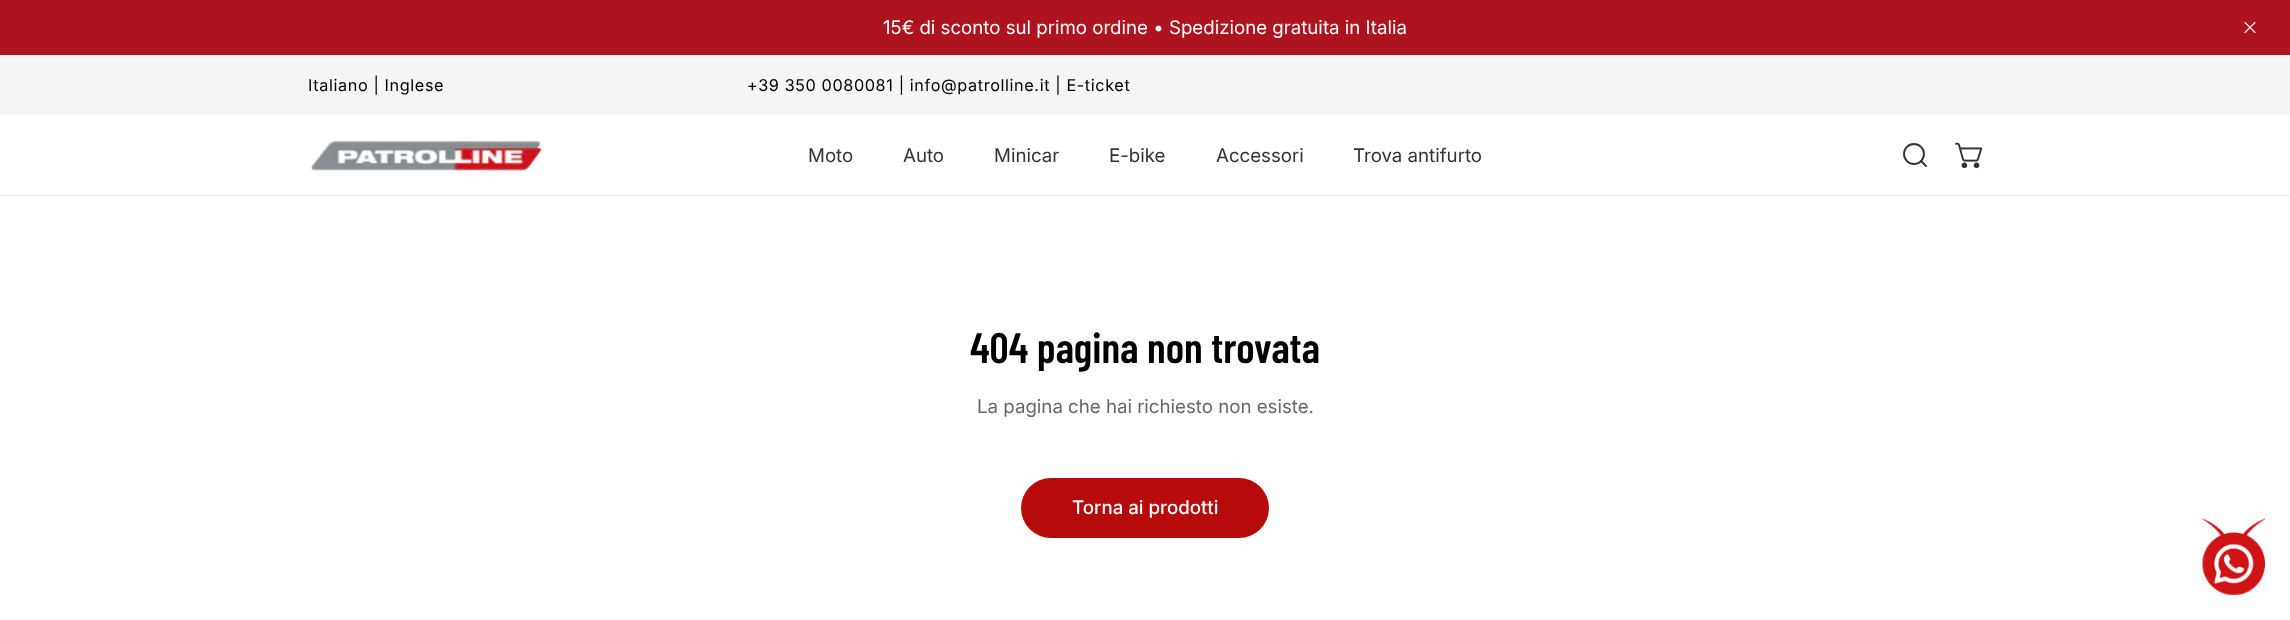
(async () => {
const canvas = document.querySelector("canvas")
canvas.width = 2290
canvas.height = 620
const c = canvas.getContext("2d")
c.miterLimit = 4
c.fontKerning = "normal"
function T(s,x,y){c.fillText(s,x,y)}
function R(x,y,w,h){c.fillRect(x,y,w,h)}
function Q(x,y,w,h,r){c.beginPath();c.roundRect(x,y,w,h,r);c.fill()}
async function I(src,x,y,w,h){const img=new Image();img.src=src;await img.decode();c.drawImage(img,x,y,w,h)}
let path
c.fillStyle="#fff"
R(0,0,2290,620)
c.fillStyle="#ae141e"
R(0,0,2290,55)
c.font="18.75px Inter"
c.fillStyle="#fff"
T("15€ di sconto sul primo ordine • Spedizione gratuita in Italia",883,34)
await I("1.png",2244,22,12,11)
c.fillStyle="#f5f5f5"
R(0,55,2290,60)
c.letterSpacing="0.6px"
c.font="16.25px 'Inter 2'"
c.fillStyle="#000"
T("Italiano | Inglese",308,91)
T("+39 350 0080081 | info@patrolline.it | E-ticket",747,91)
c.fillStyle="#ededed"
R(0,195,2290,1)
await I("2.png",311,141,232,30)
c.letterSpacing="0px"
c.font="18.75px Inter"
c.fillStyle="#333"
T("Moto",808,162)
T("Auto",903,162)
T("Minicar",994,162)
T("E-bike",1109,162)
T("Accessori",1216,162)
T("Trova antifurto",1353,162)
c.beginPath()
c.arc(1914,154,10,0,7)
c.strokeStyle="#333"
c.lineWidth=1.9
c.stroke()
path = new Path2D("M1926 166l-5-5")
c.lineCap="round"
c.lineJoin="round"
c.stroke(path)
await I("3.png",1955,142,28,27)
c.font="600 42.5px Barlow Condensed"
c.fillStyle="#000"
T("404 pagina non trovata",970,363)
c.font="18.75px Inter"
c.fillStyle="#666"
T("La pagina che hai richiesto non esiste.",977,413)
c.fillStyle="#b70a0a"
Q(1021,478,248,60,30)
c.font="500 18.75px Inter"
c.fillStyle="#fff"
T("Torna ai prodotti",1072,514)
await I("4.png",2202,518,63,77)
})()
